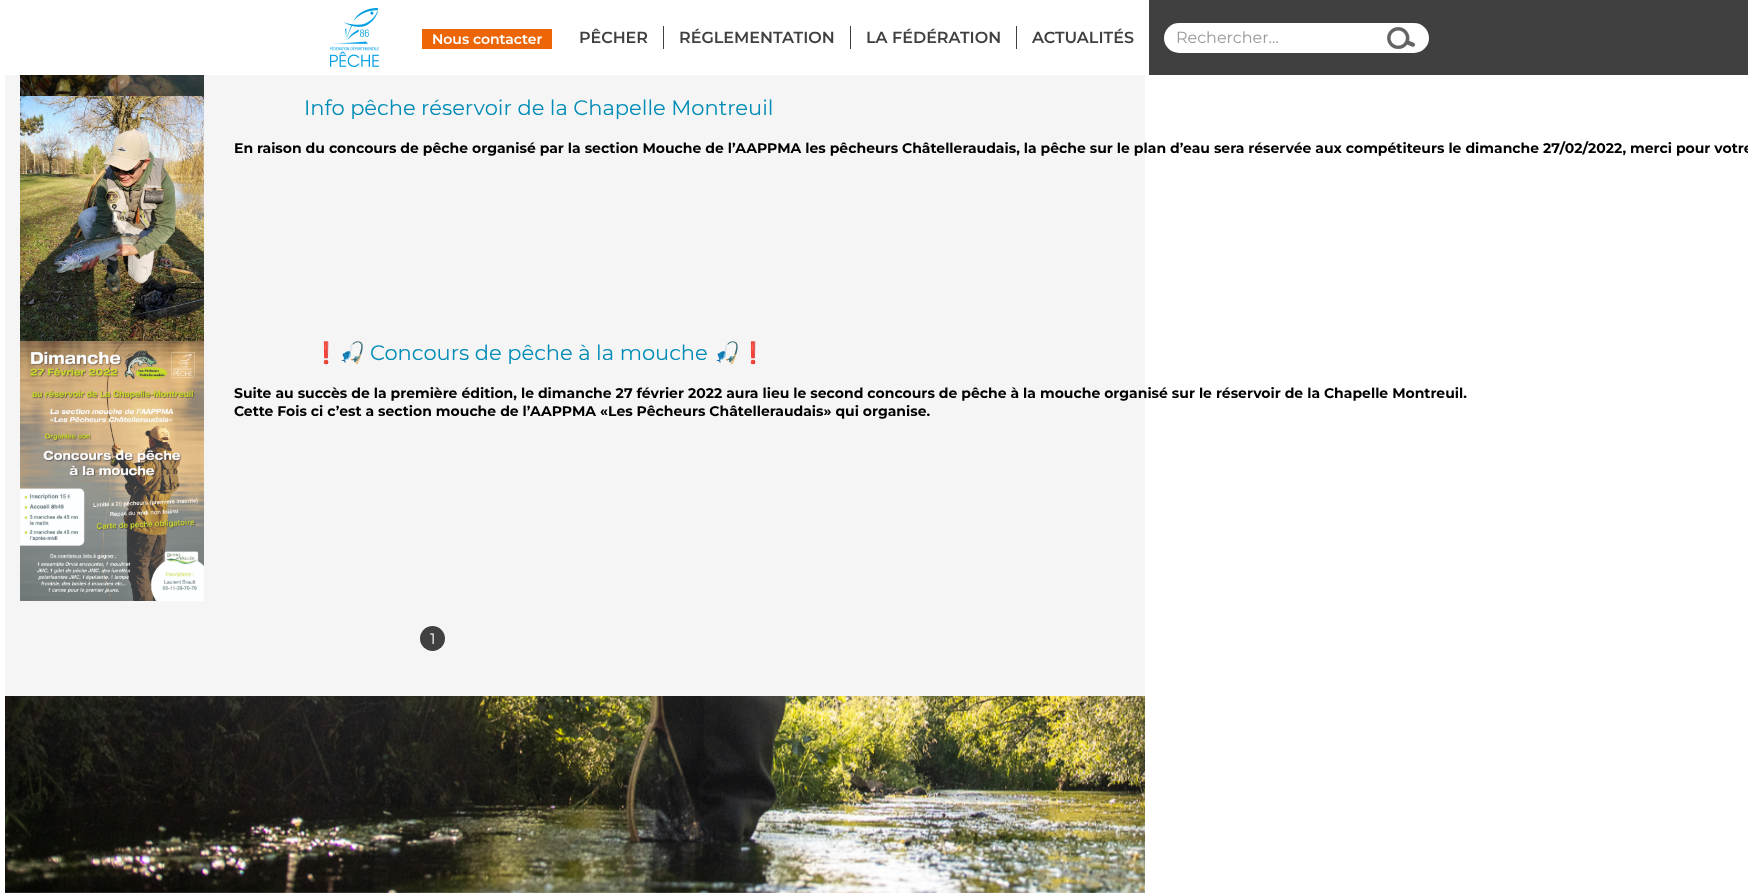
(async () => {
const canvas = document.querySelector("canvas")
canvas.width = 1748
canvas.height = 893
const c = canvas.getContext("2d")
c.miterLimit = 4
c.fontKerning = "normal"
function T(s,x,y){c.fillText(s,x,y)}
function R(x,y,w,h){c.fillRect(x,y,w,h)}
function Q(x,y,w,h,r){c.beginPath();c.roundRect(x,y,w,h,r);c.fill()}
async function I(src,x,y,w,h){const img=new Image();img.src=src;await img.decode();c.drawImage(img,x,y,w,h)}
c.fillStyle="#fff"
R(0,0,1748,893)
await I("1.png",330,8,49,59)
c.fillStyle="#ec6608"
R(422,29,130,20)
c.font="600 14px Montserrat"
c.fillStyle="#fff"
T("Nous contacter",432,44)
c.font="600 16px Montserrat"
c.fillStyle="#404040"
T("PÊCHER",579,43)
R(663,26,1,23)
T("RÉGLEMENTATION",679,43)
R(850,26,1,23)
T("LA FÉDÉRATION",866,43)
R(1016,26,1,23)
T("ACTUALITÉS",1032,43)
R(1149,0,599,75)
c.fillStyle="#fff"
Q(1164,23,265,30,15)
c.font="16px Montserrat"
c.fillStyle="#999"
T("Rechercher…",1176,43)
await I("2.png",1387,27,28,22)
await I("3.png",5,696,1140,197)
c.fillStyle="#f5f5f5"
R(5,75,1140,621)
await I("4.png",20,75,184,21)
await I("5.png",20,96,184,245)
c.font="21px Montserrat"
c.fillStyle="#008cb6"
T("Info pêche réservoir de la Chapelle Montreuil",304,115)
c.font="bold 14px Montserrat"
c.fillStyle="#000"
T("En raison du concours de pêche organisé par la section Mouche de l’AAPPMA les pêcheurs Châtelleraudais, la pêche sur le plan d’eau sera réservée aux compétiteurs le dimanche 27/02/2022, merci pour votre",234,153)
await I("6.png",20,341,184,260)
c.font="21px Noto Color Emoji"
c.fillStyle="#008cb6"
T("❗️🎣",313,360)
c.font="21px Montserrat"
T("Concours de pêche à la mouche",370,360)
c.font="21px Noto Color Emoji"
T("🎣❗️",714,360)
c.font="bold 14px Montserrat"
c.fillStyle="#000"
T("Suite au succès de la première édition, le dimanche 27 février 2022 aura lieu le second concours de pêche à la mouche organisé sur le réservoir de la Chapelle Montreuil.",234,398)
T("Cette Fois ci c’est a section mouche de l’AAPPMA «Les Pêcheurs Châtelleraudais» qui organise.",234,416)
c.fillStyle="#404040"
c.beginPath()
c.arc(432.5,638.5,12.5,0,7)
c.fill()
c.font="15px Montserrat"
c.fillStyle="#fff"
T("1",430,644)
})()
